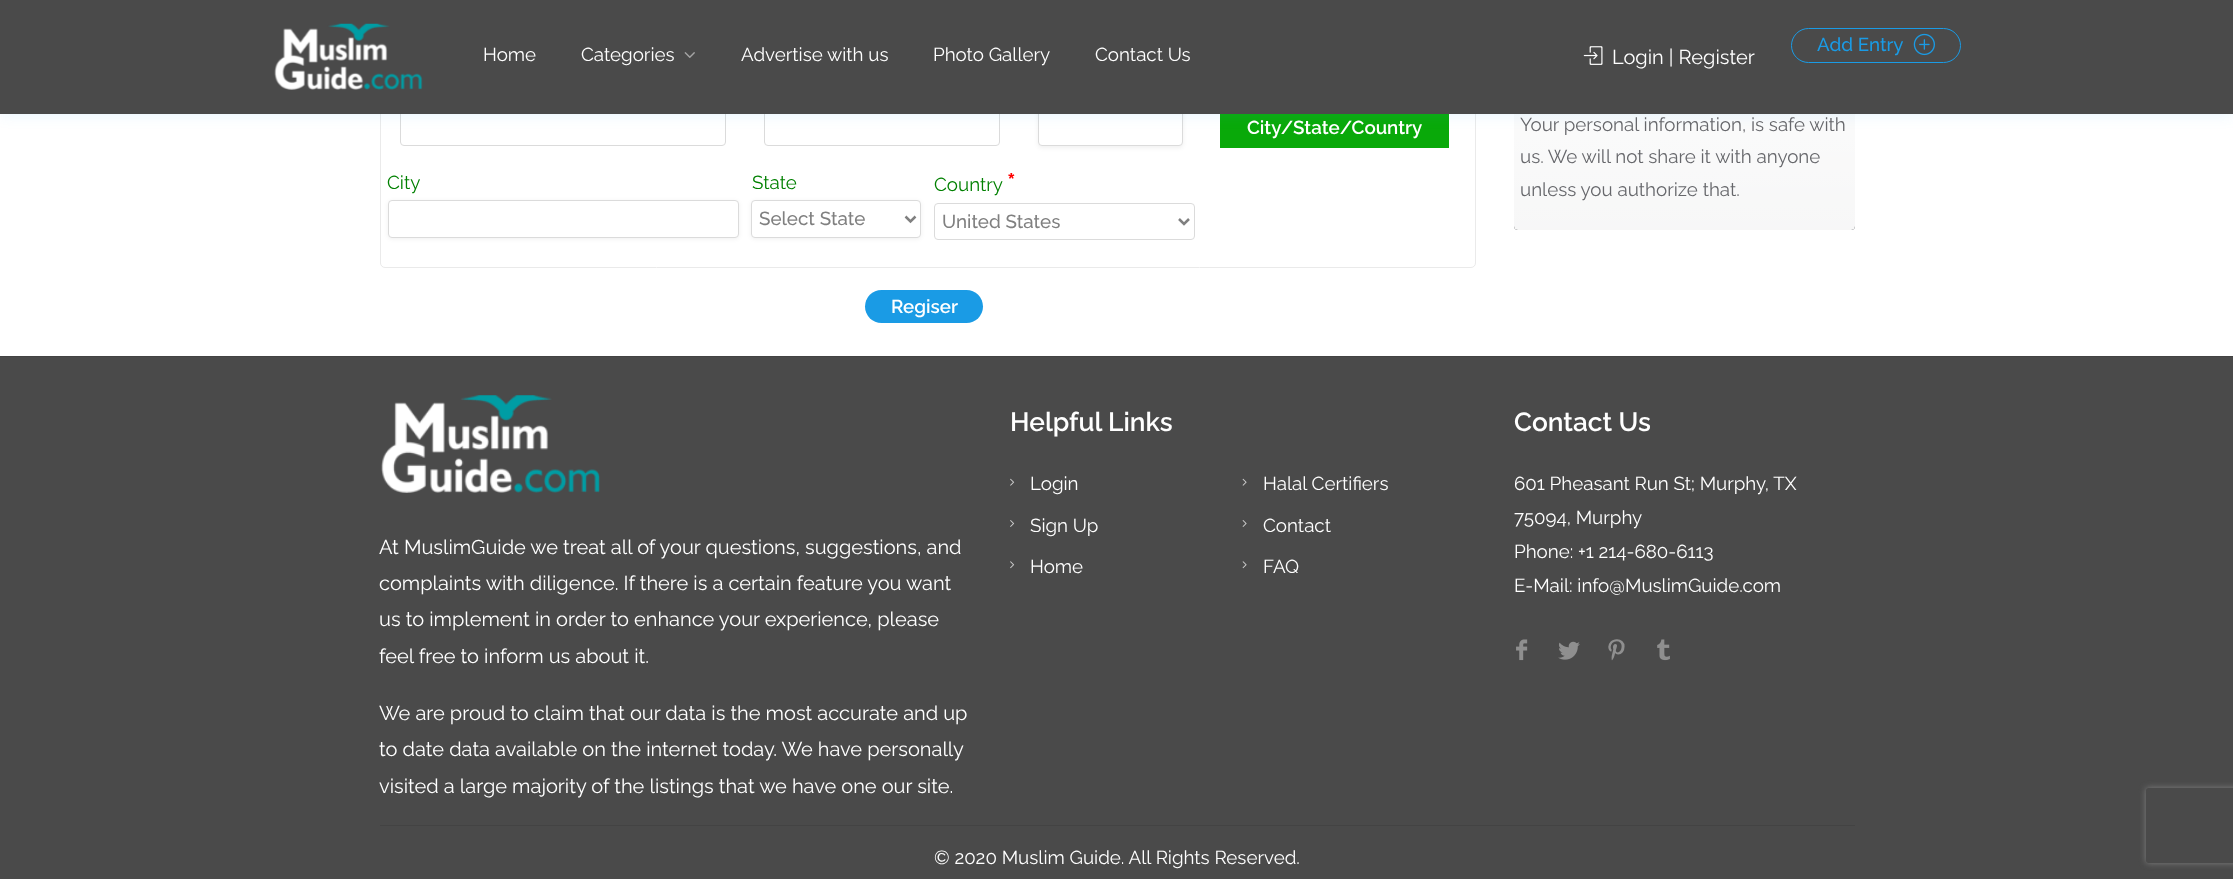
(async () => {
const canvas = document.querySelector("canvas")
canvas.width = 2233
canvas.height = 879
const c = canvas.getContext("2d")
c.miterLimit = 4
c.fontKerning = "normal"
function T(s,x,y){c.fillText(s,x,y)}
function R(x,y,w,h){c.fillRect(x,y,w,h)}
function Q(x,y,w,h,r){c.beginPath();c.roundRect(x,y,w,h,r);c.fill()}
async function I(src,x,y,w,h){const img=new Image();img.src=src;await img.decode();c.drawImage(img,x,y,w,h)}
let gradient, path
c.fillStyle="#fff"
R(0,0,2233,879)
c.beginPath()
c.roundRect(380.5,20.5,1095,247,4.5)
c.strokeStyle="#eaeaea"
c.stroke()
c.beginPath()
c.roundRect(400.5,109.5,325,36,3.5)
c.strokeStyle="#dbdbdb"
c.stroke()
c.beginPath()
c.roundRect(764.5,109.5,235,36,3.5)
c.stroke()
c.fillStyle="#0000000f"
c.filter="blur(2px)"
c.beginPath()
c.roundRect(1038,110,145,38,4)
c.fill()
c.filter="none"
c.fillStyle="#fff"
c.beginPath()
c.roundRect(1038.5,109.5,144,36,3.5)
c.fill()
c.stroke()
c.fillStyle="#09a909"
R(1220,114,229,34)
c.fillStyle="#66676b"
Q(1514,63,341,167,4)
c.save()
c.beginPath()
c.roundRect(1514,63,341,167,4)
c.clip()
gradient = c.createLinearGradient(1684,65,1684,230)
gradient.addColorStop(0,"#fffffffa")
gradient.addColorStop(1,"#fffffff2")
c.fillStyle = gradient
c.beginPath()
c.roundRect(1514,65,341,165,[0,0,4,4])
c.fill()
c.restore()
c.fillStyle="#27a9f81f"
c.filter="blur(7.5px)"
c.beginPath()
c.rect(0,0,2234,114)
c.fill()
c.filter="none"
c.fillStyle="#4a4a4a"
R(0,0,2233,114)
await I("1.png",274,23,149,67)
c.font="18.75px Raleway"
c.fillStyle="#fff"
T("Home",483,61)
T("Categories",581,61)
await I("2.png",684,52,11,6)
T("Advertise with us",741,61)
T("Photo Gallery",933,61)
T("Contact Us",1095,61)
await I("3.png",1583,46,20,19)
c.font="20px Raleway"
T("Login | Register",1612,64)
c.beginPath()
c.roundRect(1791.5,28.5,169,34,17)
c.strokeStyle="#1a9be5"
c.stroke()
c.font="500 18.75px Raleway"
c.fillStyle="#1a9be5"
T("Add Entry",1817,51)
await I("4.png",1913,33,22,23)
c.font="600 18.75px Raleway"
c.fillStyle="#fff"
T("City/State/Country",1247,134)
c.font="18.75px Raleway"
c.fillStyle="#008000"
T("City",387,189)
c.fillStyle="#0000000f"
c.filter="blur(2px)"
c.beginPath()
c.roundRect(388,201,351,38,4)
c.fill()
c.filter="none"
c.fillStyle="#fff"
c.beginPath()
c.roundRect(388.5,200.5,350,37,3.5)
c.fill()
c.strokeStyle="#dbdbdb"
c.stroke()
c.fillStyle="#008000"
T("State",752,189)
c.fillStyle="#0000000f"
c.filter="blur(2px)"
c.beginPath()
c.roundRect(751,201,170,38,4)
c.fill()
c.filter="none"
c.fillStyle="#fff"
c.beginPath()
c.roundRect(751.5,200.5,169,37,3.5)
c.fill()
c.stroke()
path = new Path2D("M905.5 216.5l5 5l5-5")
c.strokeStyle="#808080"
c.lineWidth=2.5
c.stroke(path)
c.font="500 18.75px Raleway"
c.fillStyle="#808080"
T("Select State",759,225)
c.font="bold 25px Raleway"
c.fillStyle="#f00"
T("*",1007,191)
c.font="18.75px Raleway"
c.fillStyle="#008000"
T("Country",934,191)
c.beginPath()
c.roundRect(934.5,203.5,260,36,3.5)
c.strokeStyle="#dbdbdb"
c.lineWidth=1
c.stroke()
path = new Path2D("M1179 219l5 5l5-5")
c.strokeStyle="#808080"
c.lineWidth=2.5
c.stroke(path)
c.font="500 18.75px Raleway"
c.fillStyle="#808080"
T("United States",942,228)
c.fillStyle="#1a9be5"
Q(865,290,118,33,16.5)
c.font="600 18.75px Raleway"
c.fillStyle="#fff"
T("Regiser",891,313)
c.font="18.75px Raleway"
c.fillStyle="#66676b"
T("Your personal information, is safe with",1520,131)
T("us. We will not share it with anyone",1520,163)
T("unless you authorize that.",1520,196)
c.fillStyle="#4a4a4a"
R(0,357,2233,522)
c.fillStyle="#434343"
R(0,356,2233,1)
await I("5.png",381,395,219,98)
c.font="20px Raleway"
c.fillStyle="#fff"
T("At MuslimGuide we treat all of your questions, suggestions, and",379,554)
T("complaints with diligence. If there is a certain feature you want",379,590)
T("us to implement in order to enhance your experience, please",379,626)
T("feel free to inform us about it.",379,663)
T("We are proud to claim that our data is the most accurate and up",379,720)
T("to date data available on the internet today. We have personally",379,756)
T("visited a large majority of the listings that we have one our site.",379,793)
c.font="600 26.25px Raleway"
T("Helpful Links",1010,431)
await I("6.png",1010,478,5,8)
c.font="18.75px Raleway"
T("Login",1030,490)
await I("7.png",1010,520,5,7)
T("Sign Up",1030,532)
await I("8.png",1010,561,5,8)
T("Home",1030,573)
await I("9.png",1242,478,5,8)
T("Halal Certifiers",1263,490)
await I("10.png",1242,520,5,7)
T("Contact",1263,532)
await I("11.png",1242,561,5,8)
T("FAQ",1263,573)
c.font="600 26.25px Raleway"
T("Contact Us",1514,431)
c.font="18.75px Raleway"
T("601 Pheasant Run St; Murphy, TX",1514,490)
T("75094, Murphy",1514,524)
T("Phone: +1 214-680-6113",1514,558)
T("E-Mail: info@MuslimGuide.com",1514,592)
await I("12.png",1516,639,12,22)
await I("13.png",1558,641,22,19)
c.font="21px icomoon"
c.fillStyle="#8f8f8f"
T("1",1608,657)
await I("14.png",1657,639,13,22)
c.fillStyle="#434343"
R(380,825,1475,1)
c.font="18.75px Raleway"
c.fillStyle="#fff"
T("© 2020 Muslim Guide. All Rights Reserved.",934,864)
c.save()
path = new Path2D("M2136 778h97v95h-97zm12.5 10h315c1.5 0 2.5 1 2.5 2.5v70c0 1.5-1 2.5-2.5 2.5h-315c-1.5 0-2.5-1-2.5-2.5v-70c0-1.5 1-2.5 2.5-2.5z")
c.clip(path,"evenodd")
c.fillStyle="#808080"
c.filter="blur(3px)"
c.beginPath()
c.roundRect(2146,788,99,75,2.5)
c.fill()
c.filter="none"
c.restore()
})()
